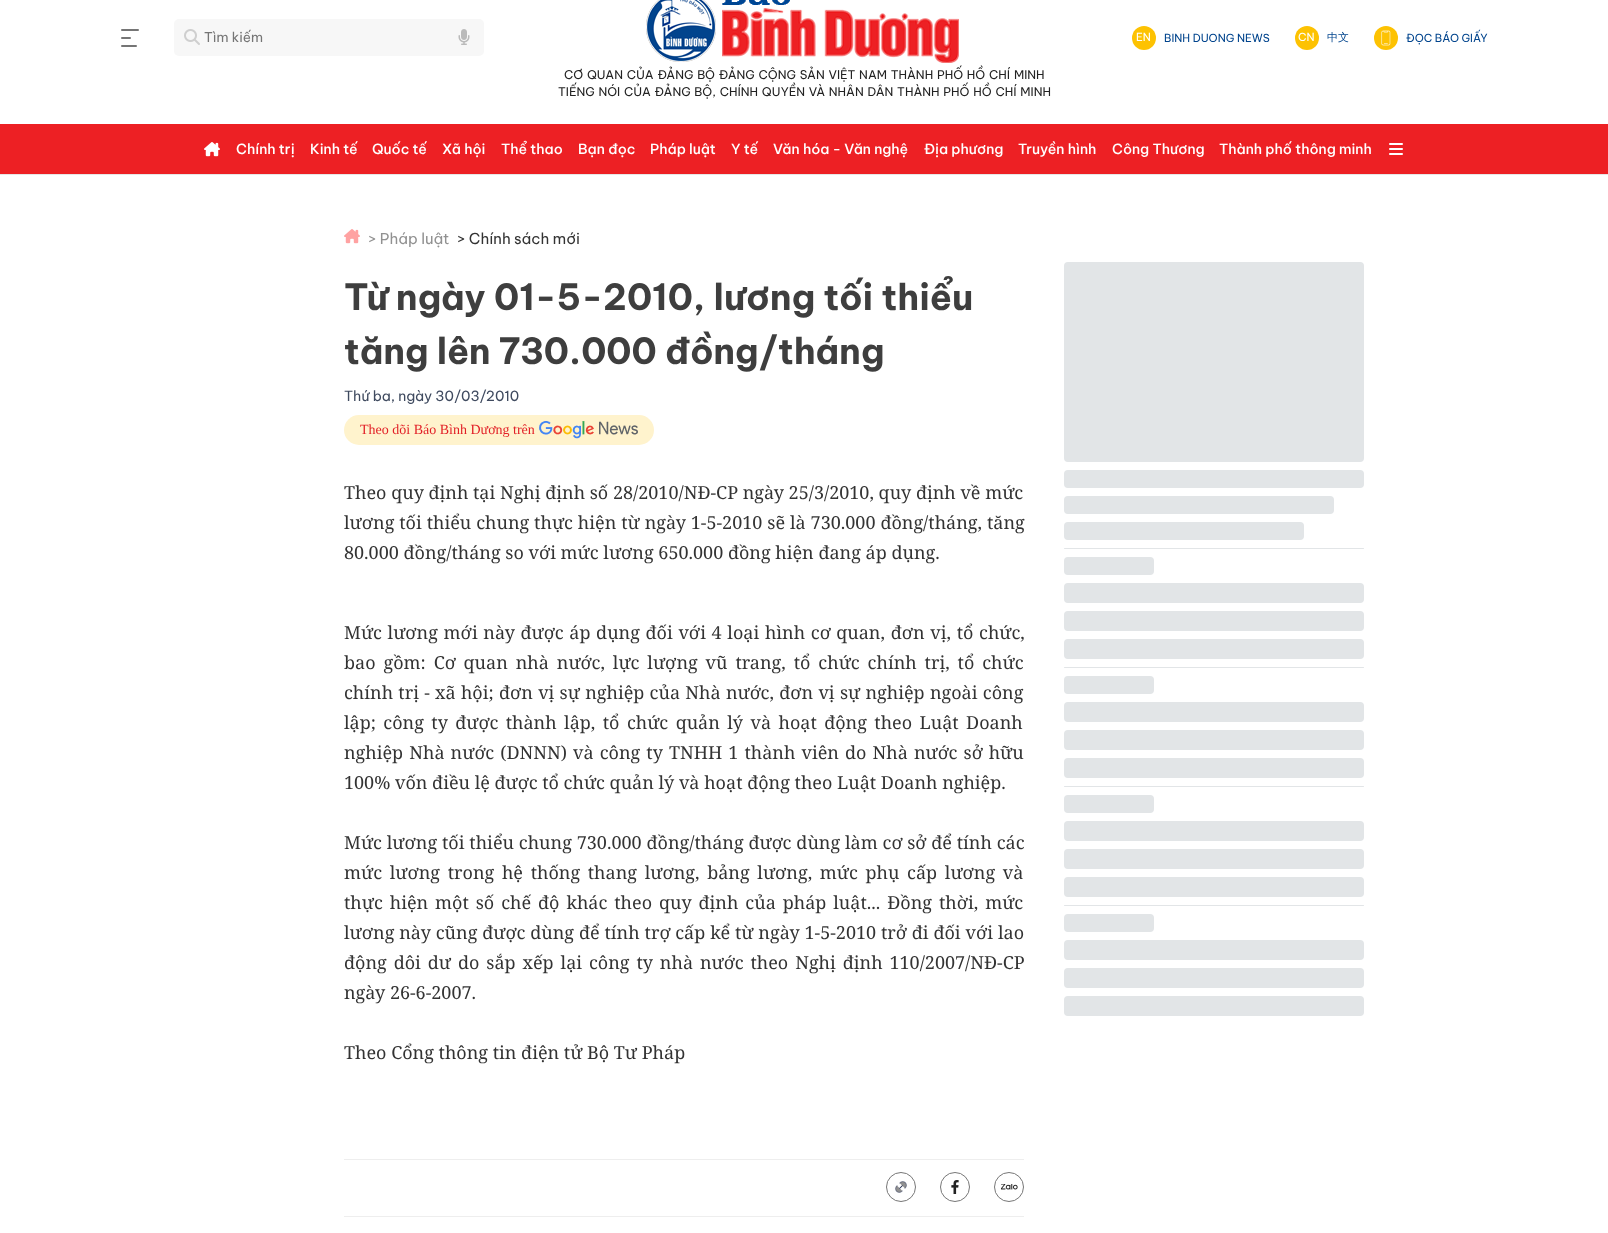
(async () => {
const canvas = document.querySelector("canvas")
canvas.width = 1608
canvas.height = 1233
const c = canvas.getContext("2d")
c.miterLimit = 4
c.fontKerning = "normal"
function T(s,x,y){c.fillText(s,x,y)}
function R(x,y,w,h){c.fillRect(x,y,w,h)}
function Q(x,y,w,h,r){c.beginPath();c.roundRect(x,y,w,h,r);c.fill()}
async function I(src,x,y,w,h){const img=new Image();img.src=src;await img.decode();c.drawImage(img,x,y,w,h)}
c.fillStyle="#fff"
R(0,0,1608,1233)
c.fillStyle="#757575"
Q(121,29,18,2,1)
Q(121,37,10,2,1)
Q(121,45,16,2,1)
c.fillStyle="#f7f7f7"
Q(174,19,310,37,5)
await I("1.png",184,29,16,16)
c.font="13.5px Be Vietnam Pro"
c.fillStyle="#757575"
T("Tìm kiếm",204,42)
await I("2.png",458,29,12,16)
c.fillStyle="#fdc202"
c.beginPath()
c.arc(1144,38,12,0,7)
c.fill()
c.font="11px Be Vietnam Pro"
c.fillStyle="#fff"
T("EN",1136,41)
c.fillStyle="#01448d"
T("BINH DUONG NEWS",1164,42)
c.fillStyle="#fdc202"
c.beginPath()
c.arc(1307,38,12,0,7)
c.fill()
c.fillStyle="#fff"
T("CN",1298,41)
c.font="500 11px WenQuanYi Zen Hei"
c.fillStyle="#01448d"
T("中文",1327,41)
c.fillStyle="#fdc202"
c.beginPath()
c.arc(1386,38,12,0,7)
c.fill()
await I("3.png",1381,30,10,16)
c.font="11px Be Vietnam Pro"
c.fillStyle="#01448d"
T("ĐỌC BÁO GIẤY",1406,42)
await I("4.png",646,0,313,63)
c.wordSpacing="1px"
c.font="12px Be Vietnam Pro"
c.fillStyle="#222"
T("CƠ QUAN CỦA ĐẢNG BỘ ĐẢNG CỘNG SẢN VIỆT NAM THÀNH PHỐ HỒ CHÍ MINH",564,79)
T("TIẾNG NÓI CỦA ĐẢNG BỘ, CHÍNH QUYỀN VÀ NHÂN DÂN THÀNH PHỐ HỒ CHÍ MINH",558,96)
c.fillStyle="#ed2024"
R(0,124,1608,50)
c.fillStyle="#e6e6e6"
R(0,174,1608,1)
await I("5.png",204,142,16,15)
c.wordSpacing="0px"
c.font="500 14px Be Vietnam Pro"
c.fillStyle="#fff"
T("Chính trị",236,154)
T("Kinh tế",310,154)
T("Quốc tế",372,154)
T("Xã hội",442,154)
T("Thể thao",501,154)
T("Bạn đọc",578,154)
T("Pháp luật",650,154)
T("Y tế",731,154)
T("Văn hóa - Văn nghệ",773,154)
T("Địa phương",924,154)
T("Truyền hình",1018,154)
T("Công Thương",1112,154)
T("Thành phố thông minh",1219,154)
await I("6.png",1389,143,14,12)
await I("7.png",344,229,16,15)
c.font="15px Be Vietnam Pro"
c.fillStyle="#919191"
T("> Pháp luật",368,244)
c.fillStyle="#333"
T("> Chính sách mới",457,244)
c.font="bold 36px Be Vietnam Pro"
c.fillStyle="#3e3e3e"
T("Từ ngày 01-5-2010, lương tối thiểu",344,310)
T("tăng lên 730.000 đồng/tháng",344,364)
c.font="14px Be Vietnam Pro"
c.fillStyle="#3f4a5f"
T("Thứ ba, ngày 30/03/2010",344,401)
c.fillStyle="#fff3cd"
Q(344,415,310,30,15)
c.font="14px Liberation Serif"
c.fillStyle="#e21f26"
T("Theo dõi Báo Bình Dương trên",360,434)
await I("8.png",539,421,99,18)
c.font="18px Noto Serif"
c.fillStyle="#333"
T("Theo quy định tại Nghị định số 28/2010/NĐ-CP ngày 25/3/2010, quy định về mức",344,499)
c.wordSpacing="0.25px"
T("lương tối thiểu chung thực hiện từ ngày 1-5-2010 sẽ là 730.000 đồng/tháng, tăng",344,529)
c.wordSpacing="0px"
T("80.000 đồng/tháng so với mức lương 650.000 đồng hiện đang áp dụng.",344,559)
c.wordSpacing="1px"
T("Mức lương mới này được áp dụng đối với 4 loại hình cơ quan, đơn vị, tổ chức,",344,639)
c.wordSpacing="3.25px"
T("bao gồm: Cơ quan nhà nước, lực lượng vũ trang, tổ chức chính trị, tổ chức",344,669)
c.wordSpacing="0.6px"
T("chính trị - xã hội; đơn vị sự nghiệp của Nhà nước, đơn vị sự nghiệp ngoài công",344,699)
c.wordSpacing="2.75px"
T("lập; công ty được thành lập, tổ chức quản lý và hoạt động theo Luật Doanh",344,729)
c.wordSpacing="1.4px"
T("nghiệp Nhà nước (DNNN) và công ty TNHH 1 thành viên do Nhà nước sở hữu",344,759)
c.wordSpacing="0px"
T("100% vốn điều lệ được tổ chức quản lý và hoạt động theo Luật Doanh nghiệp.",344,789)
c.wordSpacing="0.2px"
T("Mức lương tối thiểu chung 730.000 đồng/tháng được dùng làm cơ sở để tính các",344,849)
c.wordSpacing="3px"
T("mức lương trong hệ thống thang lương, bảng lương, mức phụ cấp lương và",344,879)
c.wordSpacing="2.25px"
T("thực hiện một số chế độ khác theo quy định của pháp luật... Đồng thời, mức",344,909)
c.wordSpacing="0.25px"
T("lương này cũng được dùng để tính trợ cấp kể từ ngày 1-5-2010 trở đi đối với lao",344,939)
c.wordSpacing="2.25px"
T("động dôi dư do sắp xếp lại công ty nhà nước theo Nghị định 110/2007/NĐ-CP",344,969)
c.wordSpacing="0px"
T("ngày 26-6-2007.",344,999)
T("Theo Cổng thông tin điện tử Bộ Tư Pháp",344,1059)
c.fillStyle="#eee"
R(344,1159,680,1)
R(344,1216,680,1)
c.beginPath()
c.arc(901,1187,14.5,0,7)
c.strokeStyle="#777"
c.stroke()
await I("9.png",895,1181,12,12)
c.beginPath()
c.arc(955,1187,14.5,0,7)
c.stroke()
await I("10.png",951,1180,8,14)
c.beginPath()
c.arc(1009,1187,14.5,0,7)
c.stroke()
await I("11.png",1001,1184,17,6)
c.fillStyle="#e2e5e7"
Q(1064,262,300,200,4)
Q(1064,470,300,18,4)
Q(1064,496,270,18,4)
Q(1064,522,240,18,4)
Q(1064,548,300,1,.5)
Q(1064,557,90,18,4)
Q(1064,583,300,20,4)
Q(1064,611,300,20,4)
Q(1064,639,300,20,4)
Q(1064,667,300,1,.5)
Q(1064,676,90,18,4)
Q(1064,702,300,20,4)
Q(1064,730,300,20,4)
Q(1064,758,300,20,4)
Q(1064,786,300,1,.5)
Q(1064,795,90,18,4)
Q(1064,821,300,20,4)
Q(1064,849,300,20,4)
Q(1064,877,300,20,4)
Q(1064,905,300,1,.5)
Q(1064,914,90,18,4)
Q(1064,940,300,20,4)
Q(1064,968,300,20,4)
Q(1064,996,300,20,4)
})()
